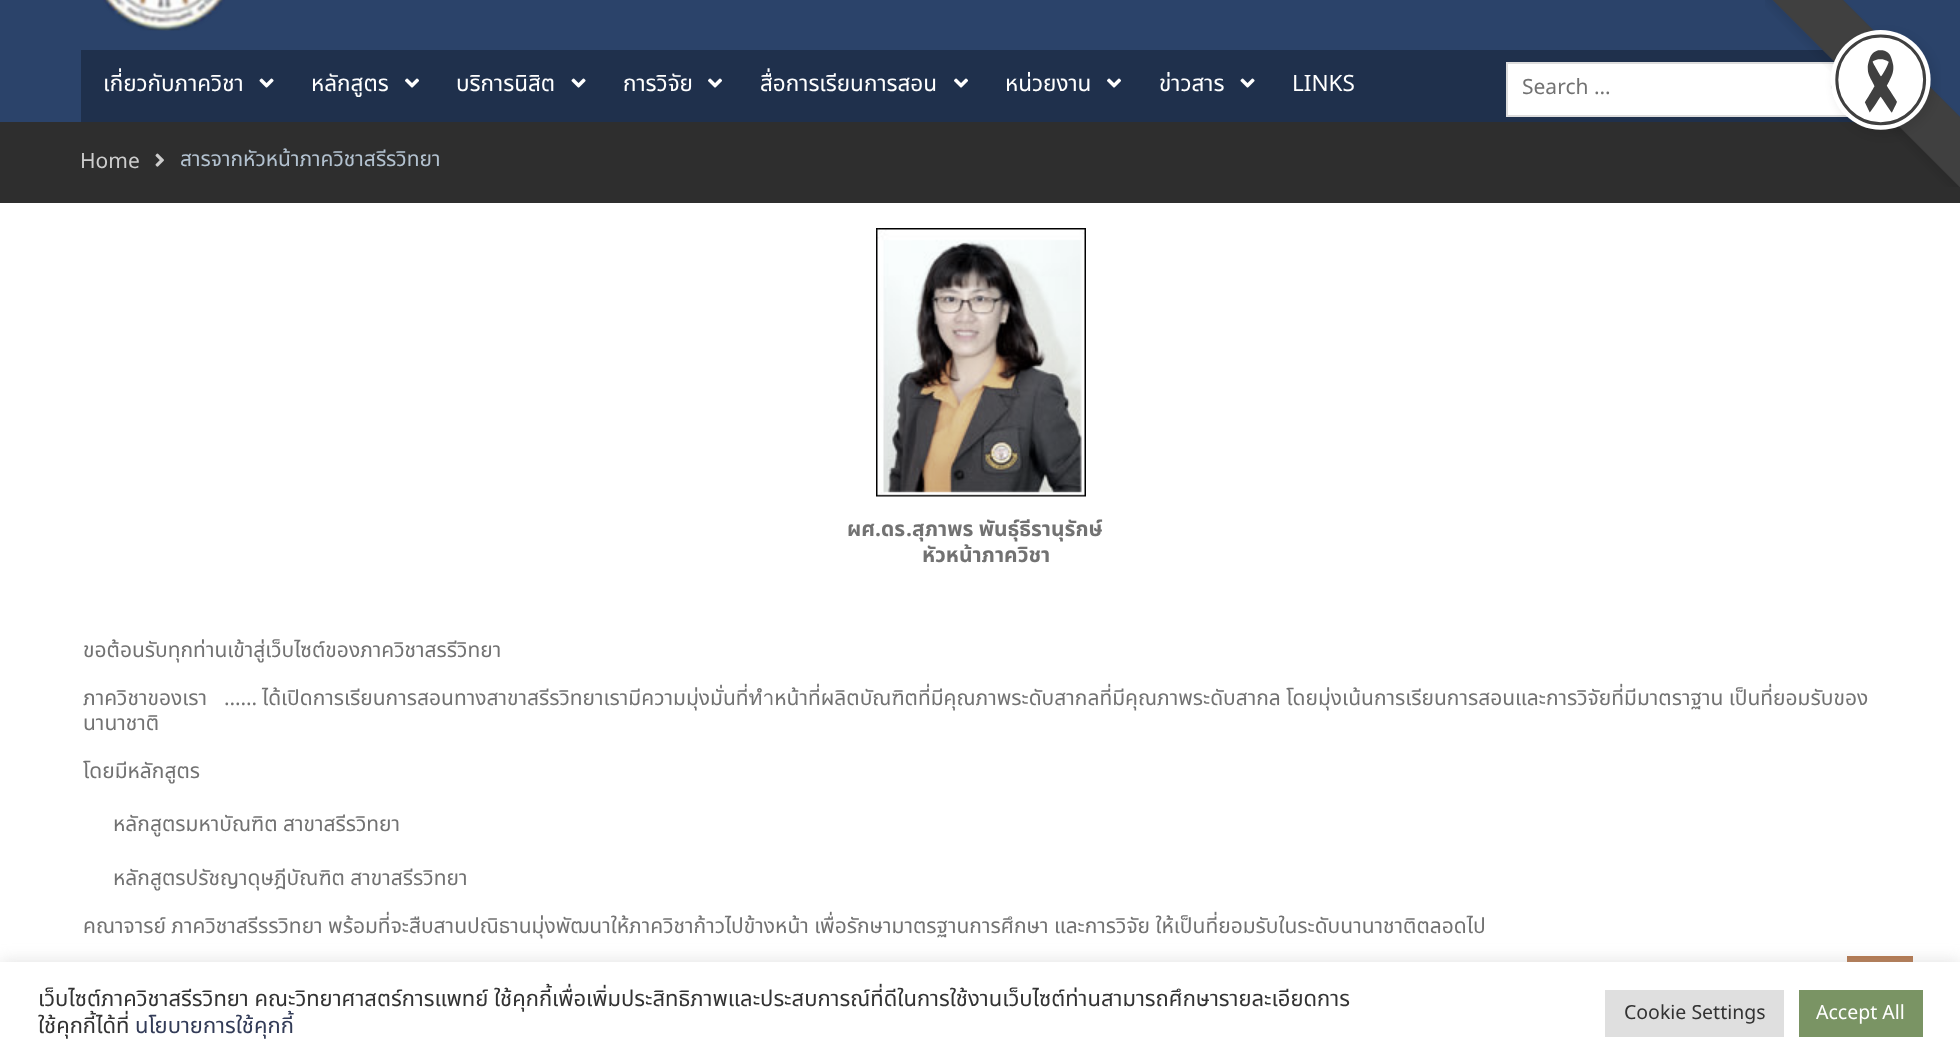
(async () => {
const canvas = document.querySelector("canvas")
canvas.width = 1960
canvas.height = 1064
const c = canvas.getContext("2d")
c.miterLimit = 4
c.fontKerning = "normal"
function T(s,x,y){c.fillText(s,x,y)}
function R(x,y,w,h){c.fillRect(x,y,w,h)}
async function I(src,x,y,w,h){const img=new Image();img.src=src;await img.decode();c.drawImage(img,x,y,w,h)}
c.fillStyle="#fff"
R(0,0,1960,1064)
c.fillStyle="#2b436a"
R(0,0,1960,122)
c.fillStyle="#1f304c"
R(81,50,1774,72)
c.fillStyle="#fff"
R(1508,64,338,51)
c.strokeStyle="#ddd"
c.lineWidth=2
c.strokeRect(1507,63,364,53)
await I("5.png",1831,84,2,7)
c.fillStyle="#2e2e2e"
R(0,122,1960,81)
await I("1.png",1765,0,195,187)
await I("2.png",103,0,122,31)
c.font="22.5px Noto Sans Thai"
c.fillStyle="#fff"
T("เกี่ยวกับภาควิชา",103,91)
await I("3.png",259,78,15,10)
T("หลักสูตร",311,91)
await I("4.png",405,78,14,10)
T("บริการนิสิต",456,91)
await I("3.png",571,78,15,10)
T("การวิจัย",623,91)
await I("4.png",708,78,14,10)
T("สื่อการเรียนการสอน",760,91)
await I("4.png",954,78,14,10)
T("หน่วยงาน",1005,91)
await I("4.png",1107,78,14,10)
T("ข่าวสาร",1159,91)
await I("3.png",1240,78,15,10)
c.font="22.5px Noto Sans"
T("LINKS",1292,91)
c.font="21px Noto Sans"
c.fillStyle="#727272"
T("Search …",1522,94)
c.fillStyle="#cdcdcd"
T("Home",80,168)
await I("6.png",155,153,9,14)
c.font="21px Noto Sans Thai"
c.fillStyle="#b3c2d0"
T("สารจากหัวหน้าภาควิชาสรีรวิทยา",180,166)
await I("7.png",876,228,210,269)
c.font="bold 21px Noto Sans Thai"
c.fillStyle="#727272"
T("ผศ",847,536)
c.font="bold 21px Noto Sans"
T(".",875,536)
c.font="bold 21px Noto Sans Thai"
T("ดร",881,536)
c.font="bold 21px Noto Sans"
T(".",906,536)
c.font="bold 21px Noto Sans Thai"
T("สุภาพร พันธ์ุธีรานุรักษ์",912,536)
T("หัวหน้าภาควิชา",922,562)
c.font="21px Noto Sans Thai"
T("ขอต้อนรับทุกท่านเข้าสู่เว็บไซต์ของภาควิชาสรรีวิทยา",83,657)
T("ภาควิชาของเรา",83,705)
c.font="21px Noto Sans"
T("……",224,705)
c.font="21px Noto Sans Thai"
T("ได้เปิดการเรียนการสอนทางสาขาสรีรวิทยาเรามีความมุ่งมั่นที่ทำหน้าที่ผลิตบัณฑิตที่มีคุณภาพระดับสากลที่มีคุณภาพระดับสากล โดยมุ่งเน้นการเรียนการสอนและการวิจัยที่มีมาตราฐาน เป็นที่ยอมรับของ",262,705)
T("นานาชาติ",83,730)
T("โดยมีหลักสูตร",83,778)
T("หลักสูตรมหาบัณฑิต สาขาสรีรวิทยา",113,831)
T("หลักสูตรปรัชญาดุษฎีบัณฑิต สาขาสรีรวิทยา",113,885)
T("คณาจารย์ ภาควิชาสรีรรวิทยา พร้อมที่จะสืบสานปณิธานมุ่งพัฒนาให้ภาควิชาก้าวไปข้างหน้า เพื่อรักษามาตรฐานการศึกษา และการวิจัย ให้เป็นที่ยอมรับในระดับนานาชาติตลอดไป",83,933)
c.fillStyle="#b2754c"
R(1847,956,66,6)
c.fillStyle="#acabab4d"
c.filter="blur(7.5px)"
c.beginPath()
c.rect(0,960,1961,104)
c.fill()
c.filter="none"
c.fillStyle="#fff"
R(0,962,1960,102)
c.font="22px Noto Sans Thai"
c.fillStyle="#333"
T("เว็บไซต์ภาควิชาสรีรวิทยา คณะวิทยาศาสตร์การแพทย์ ใช้คุกกี้เพื่อเพิ่มประสิทธิภาพและประสบการณ์ที่ดีในการใช้งานเว็บไซต์ท่านสามารถศึกษารายละเอียดการ",38,1006)
T("ใช้คุกกี้ได้ที่",38,1033)
c.fillStyle="#323b57"
T("นโยบายการใช้คุกกี้",135,1033)
c.fillStyle="#dfdfdf"
R(1605,990,179,47)
c.font="19.5px Noto Sans"
c.fillStyle="#333"
T("Cookie Settings",1624,1019)
c.fillStyle="#7a9464"
R(1799,990,124,47)
c.fillStyle="#fff"
T("Accept All",1816,1019)
})()
